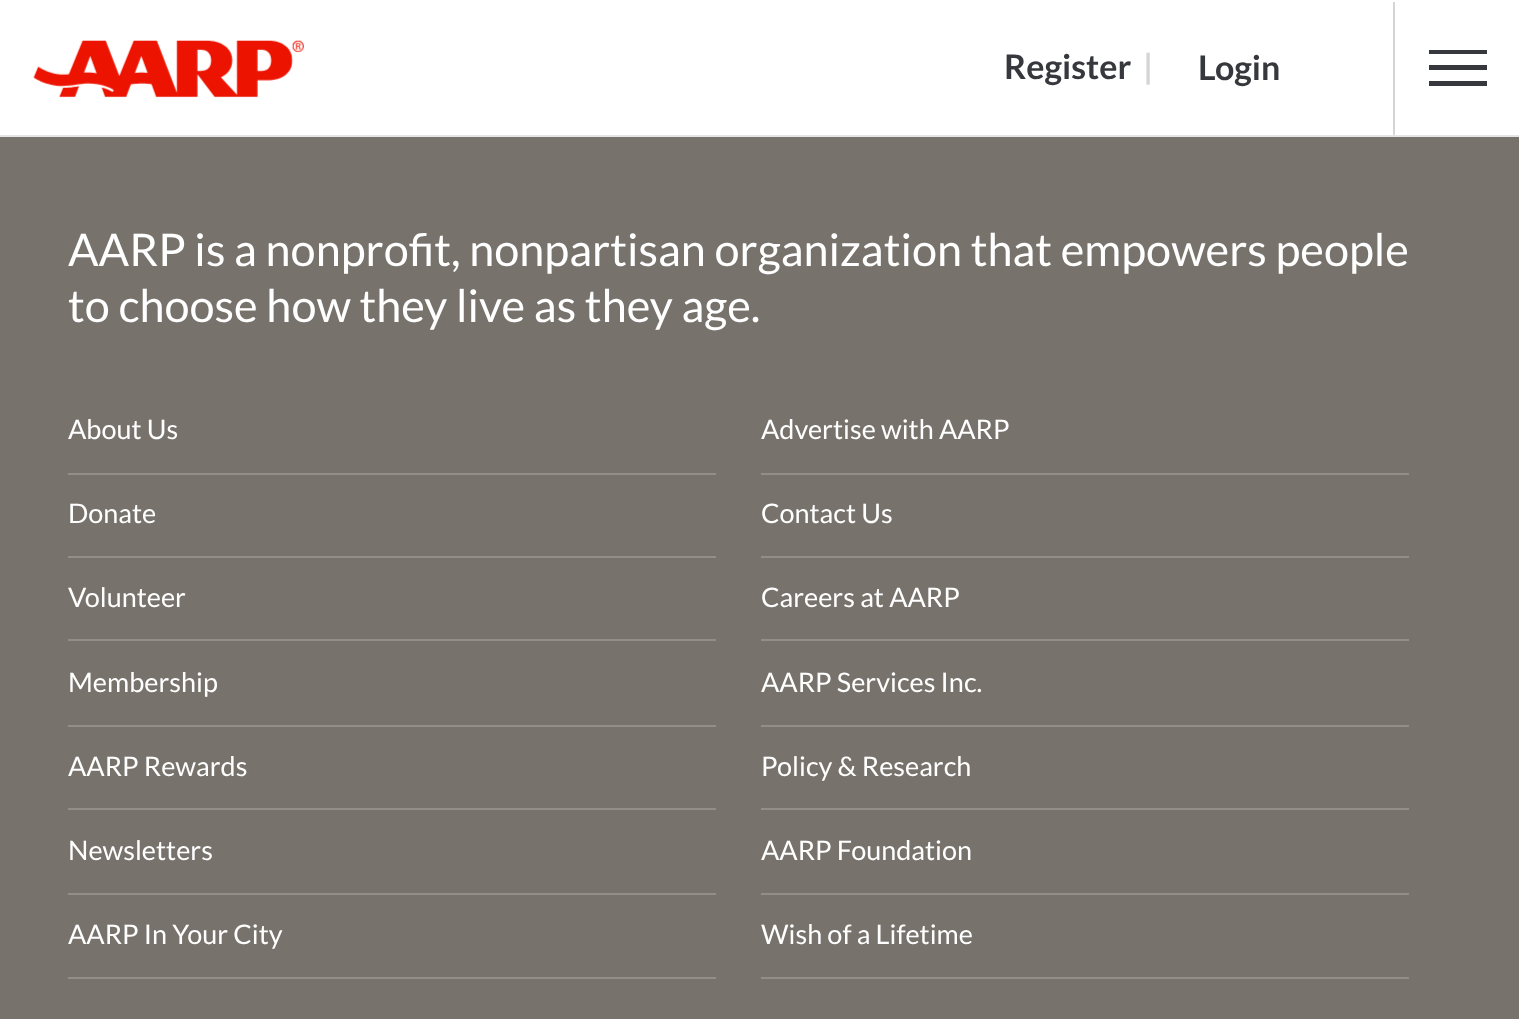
(async () => {
const canvas = document.querySelector("canvas")
canvas.width = 1519
canvas.height = 1019
const c = canvas.getContext("2d")
c.miterLimit = 4
c.fontKerning = "normal"
function T(s,x,y){c.fillText(s,x,y)}
function R(x,y,w,h){c.fillRect(x,y,w,h)}
async function I(src,x,y,w,h){const img=new Image();img.src=src;await img.decode();c.drawImage(img,x,y,w,h)}
c.fillStyle="#77726b"
R(0,0,1519,1019)
c.fillStyle="#fff"
R(0,0,1519,135)
c.fillStyle="#e5e5e5"
R(0,135,1519,2)
await I("1.png",33,40,271,58)
c.font="bold 34px Lato"
c.fillStyle="#37383d"
T("Register",1004,79)
c.fillStyle="#d5d5d5"
T("|",1143,79)
R(1393,2,2,133)
c.fillStyle="#37383d"
T("Login",1198,80)
R(1429,50,58,4)
R(1429,65,58,5)
R(1429,81,58,5)
c.font="45px Lato"
c.fillStyle="#fff"
T("AARP is a nonprofit, nonpartisan organization that empowers people",68,266)
T("to choose how they live as they age.",68,322)
c.fillStyle="#928e89"
R(68,473,648,2)
c.font="27px Lato"
c.fillStyle="#fff"
T("About Us",68,439)
c.fillStyle="#928e89"
R(68,556,648,2)
c.fillStyle="#fff"
T("Donate",68,523)
c.fillStyle="#928e89"
R(68,639,648,2)
c.fillStyle="#fff"
T("Volunteer",68,607)
c.fillStyle="#928e89"
R(68,725,648,2)
c.fillStyle="#fff"
T("Membership",68,692)
c.fillStyle="#928e89"
R(68,808,648,2)
c.fillStyle="#fff"
T("AARP Rewards",68,776)
c.fillStyle="#928e89"
R(761,473,648,2)
c.fillStyle="#fff"
T("Advertise with AARP",761,439)
c.fillStyle="#928e89"
R(761,556,648,2)
c.fillStyle="#fff"
T("Contact Us",761,523)
c.fillStyle="#928e89"
R(761,639,648,2)
c.fillStyle="#fff"
T("Careers at AARP",761,607)
c.fillStyle="#928e89"
R(761,725,648,2)
c.fillStyle="#fff"
T("AARP Services Inc.",761,692)
c.fillStyle="#928e89"
R(761,808,648,2)
c.fillStyle="#fff"
T("Policy & Research",761,776)
c.fillStyle="#928e89"
R(68,893,648,2)
c.fillStyle="#fff"
T("Newsletters",68,860)
c.fillStyle="#928e89"
R(68,977,648,2)
c.fillStyle="#fff"
T("AARP In Your City",68,944)
c.fillStyle="#928e89"
R(761,893,648,2)
c.fillStyle="#fff"
T("AARP Foundation",761,860)
c.fillStyle="#928e89"
R(761,977,648,2)
c.fillStyle="#fff"
T("Wish of a Lifetime",761,944)
})()
